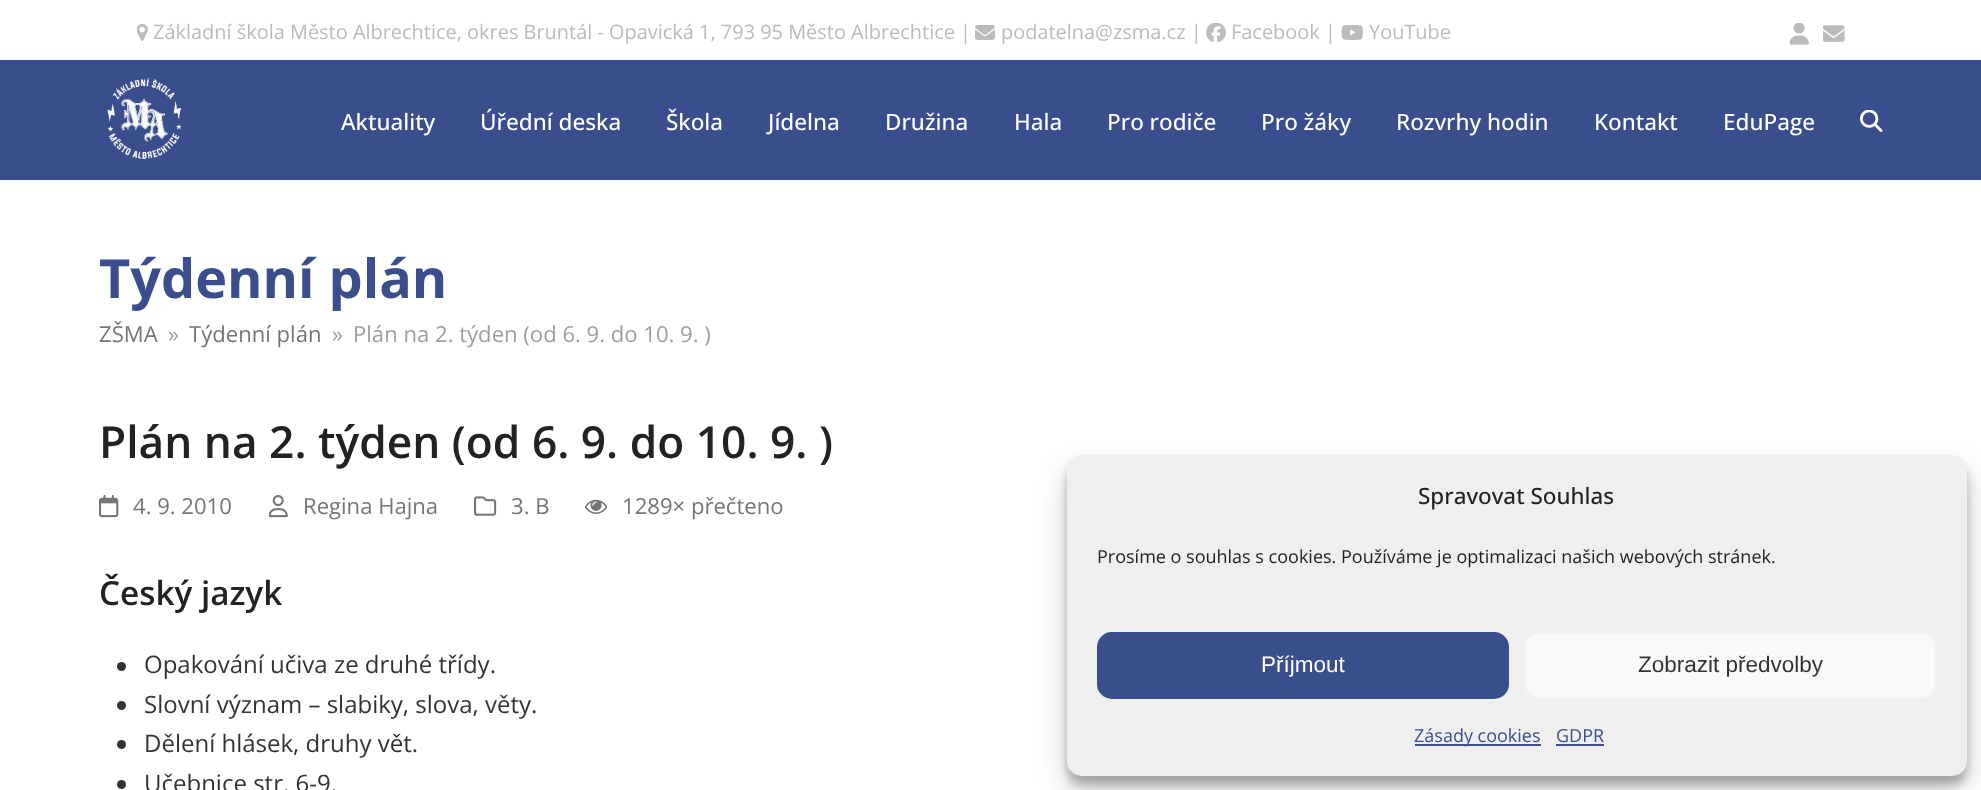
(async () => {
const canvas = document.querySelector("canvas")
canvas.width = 1981
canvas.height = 790
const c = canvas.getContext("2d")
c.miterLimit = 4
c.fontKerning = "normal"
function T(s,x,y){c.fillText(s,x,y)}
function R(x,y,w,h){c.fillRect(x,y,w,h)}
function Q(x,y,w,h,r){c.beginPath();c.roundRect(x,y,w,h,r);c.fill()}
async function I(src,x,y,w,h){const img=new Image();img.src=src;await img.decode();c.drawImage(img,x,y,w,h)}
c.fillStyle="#fff"
R(0,0,1981,790)
await I("1.png",137,24,11,17)
c.font="19.95px Open Sans"
c.fillStyle="#bbb"
T("Základní škola Město Albrechtice, okres Bruntál - Opavická 1, 793 95 Město Albrechtice |",153,39)
await I("2.png",975,25,20,15)
T("podatelna@zsma.cz |",1001,39)
await I("3.png",1206,23,20,19)
T("Facebook |",1231,39)
await I("4.png",1341,25,22,15)
T("YouTube",1369,39)
await I("5.png",1790,23,19,22)
await I("6.png",1823,25,22,17)
c.fillStyle="#3a4d8c"
R(0,60,1981,120)
await I("7.png",107,77,75,82)
c.font="500 22.5px Open Sans"
c.fillStyle="#fff"
T("Aktuality",341,130)
T("Úřední deska",480,130)
T("Škola",666,130)
T("Jídelna",768,130)
T("Družina",885,130)
T("Hala",1014,130)
T("Pro rodiče",1107,130)
T("Pro žáky",1261,130)
T("Rozvrhy hodin",1396,130)
T("Kontakt",1594,130)
T("EduPage",1723,130)
await I("8.png",1860,110,23,22)
c.font="bold 54px Open Sans"
c.fillStyle="#3a4d8c"
T("Týdenní plán",99,298)
c.font="22.1px Open Sans"
c.fillStyle="#757575"
T("ZŠMA",99,342)
c.fillStyle="#9e9e9e"
T("»",168,342)
c.fillStyle="#757575"
T("Týdenní plán",189,342)
c.fillStyle="#9e9e9e"
T("»",332,342)
T("Plán na 2. týden (od 6. 9. do 10. 9. )",353,342)
c.font="600 44.25px Open Sans"
c.fillStyle="#222"
T("Plán na 2. týden (od 6. 9. do 10. 9. )",99,458)
await I("9.png",99,495,20,23)
c.font="22.1px Open Sans"
c.fillStyle="#757575"
T("4. 9. 2010",133,514)
await I("10.png",269,495,19,23)
T("Regina Hajna",303,514)
await I("11.png",474,496,23,20)
T("3. B",511,514)
await I("12.png",585,499,23,15)
T("1289× přečteno",622,514)
c.font="600 33.25px Open Sans"
c.fillStyle="#222"
T("Český jazyk",99,605)
c.fillStyle="#333"
c.beginPath()
c.arc(121.5,666.5,4.5,0,7)
c.fill()
c.font="24px Open Sans"
T("Opakování učiva ze druhé třídy.",144,673)
c.beginPath()
c.arc(121.5,705.5,4.5,0,7)
c.fill()
T("Slovní význam – slabiky, slova, věty.",144,713)
c.beginPath()
c.arc(121.5,744.5,4.5,0,7)
c.fill()
T("Dělení hlásek, druhy vět.",144,752)
c.beginPath()
c.arc(121.5,784.5,4.5,0,7)
c.fill()
T("Učebnice str. 6-9.",144,792)
c.fillStyle="#0000003b"
c.filter="blur(4.5px)"
c.beginPath()
c.roundRect(1067,464,900,321,15)
c.fill()
c.filter="none"
c.fillStyle="#00000030"
c.filter="blur(15px)"
c.beginPath()
c.roundRect(1067,470,900,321,15)
c.fill()
c.filter="none"
c.fillStyle="#efefef"
Q(1067,455,900,321,15)
c.font="500 22.5px Open Sans"
c.fillStyle="#222"
T("Spravovat Souhlas",1418,504)
c.font="18px Open Sans"
T("Prosíme o souhlas s cookies. Používáme je optimalizaci našich webových stránek.",1097,563)
c.fillStyle="#3a4d8c"
c.beginPath()
c.roundRect(1098,633,410,65,14)
c.fill()
c.strokeStyle="#3a4d8c"
c.lineWidth=2
c.stroke()
c.font="22.5px Liberation Sans"
c.fillStyle="#fff"
T("Příjmout",1261,672)
c.fillStyle="#f9f9f9"
c.beginPath()
c.roundRect(1525,633,411,65,14)
c.fill()
c.strokeStyle="#f2f2f2"
c.stroke()
c.fillStyle="#333"
T("Zobrazit předvolby",1638,672)
c.fillStyle="#3a4d8c"
R(1415,744,126,2)
c.font="18px Open Sans"
T("Zásady cookies",1414,742)
T("GDPR",1556,742)
R(1556,744,48,2)
})()
